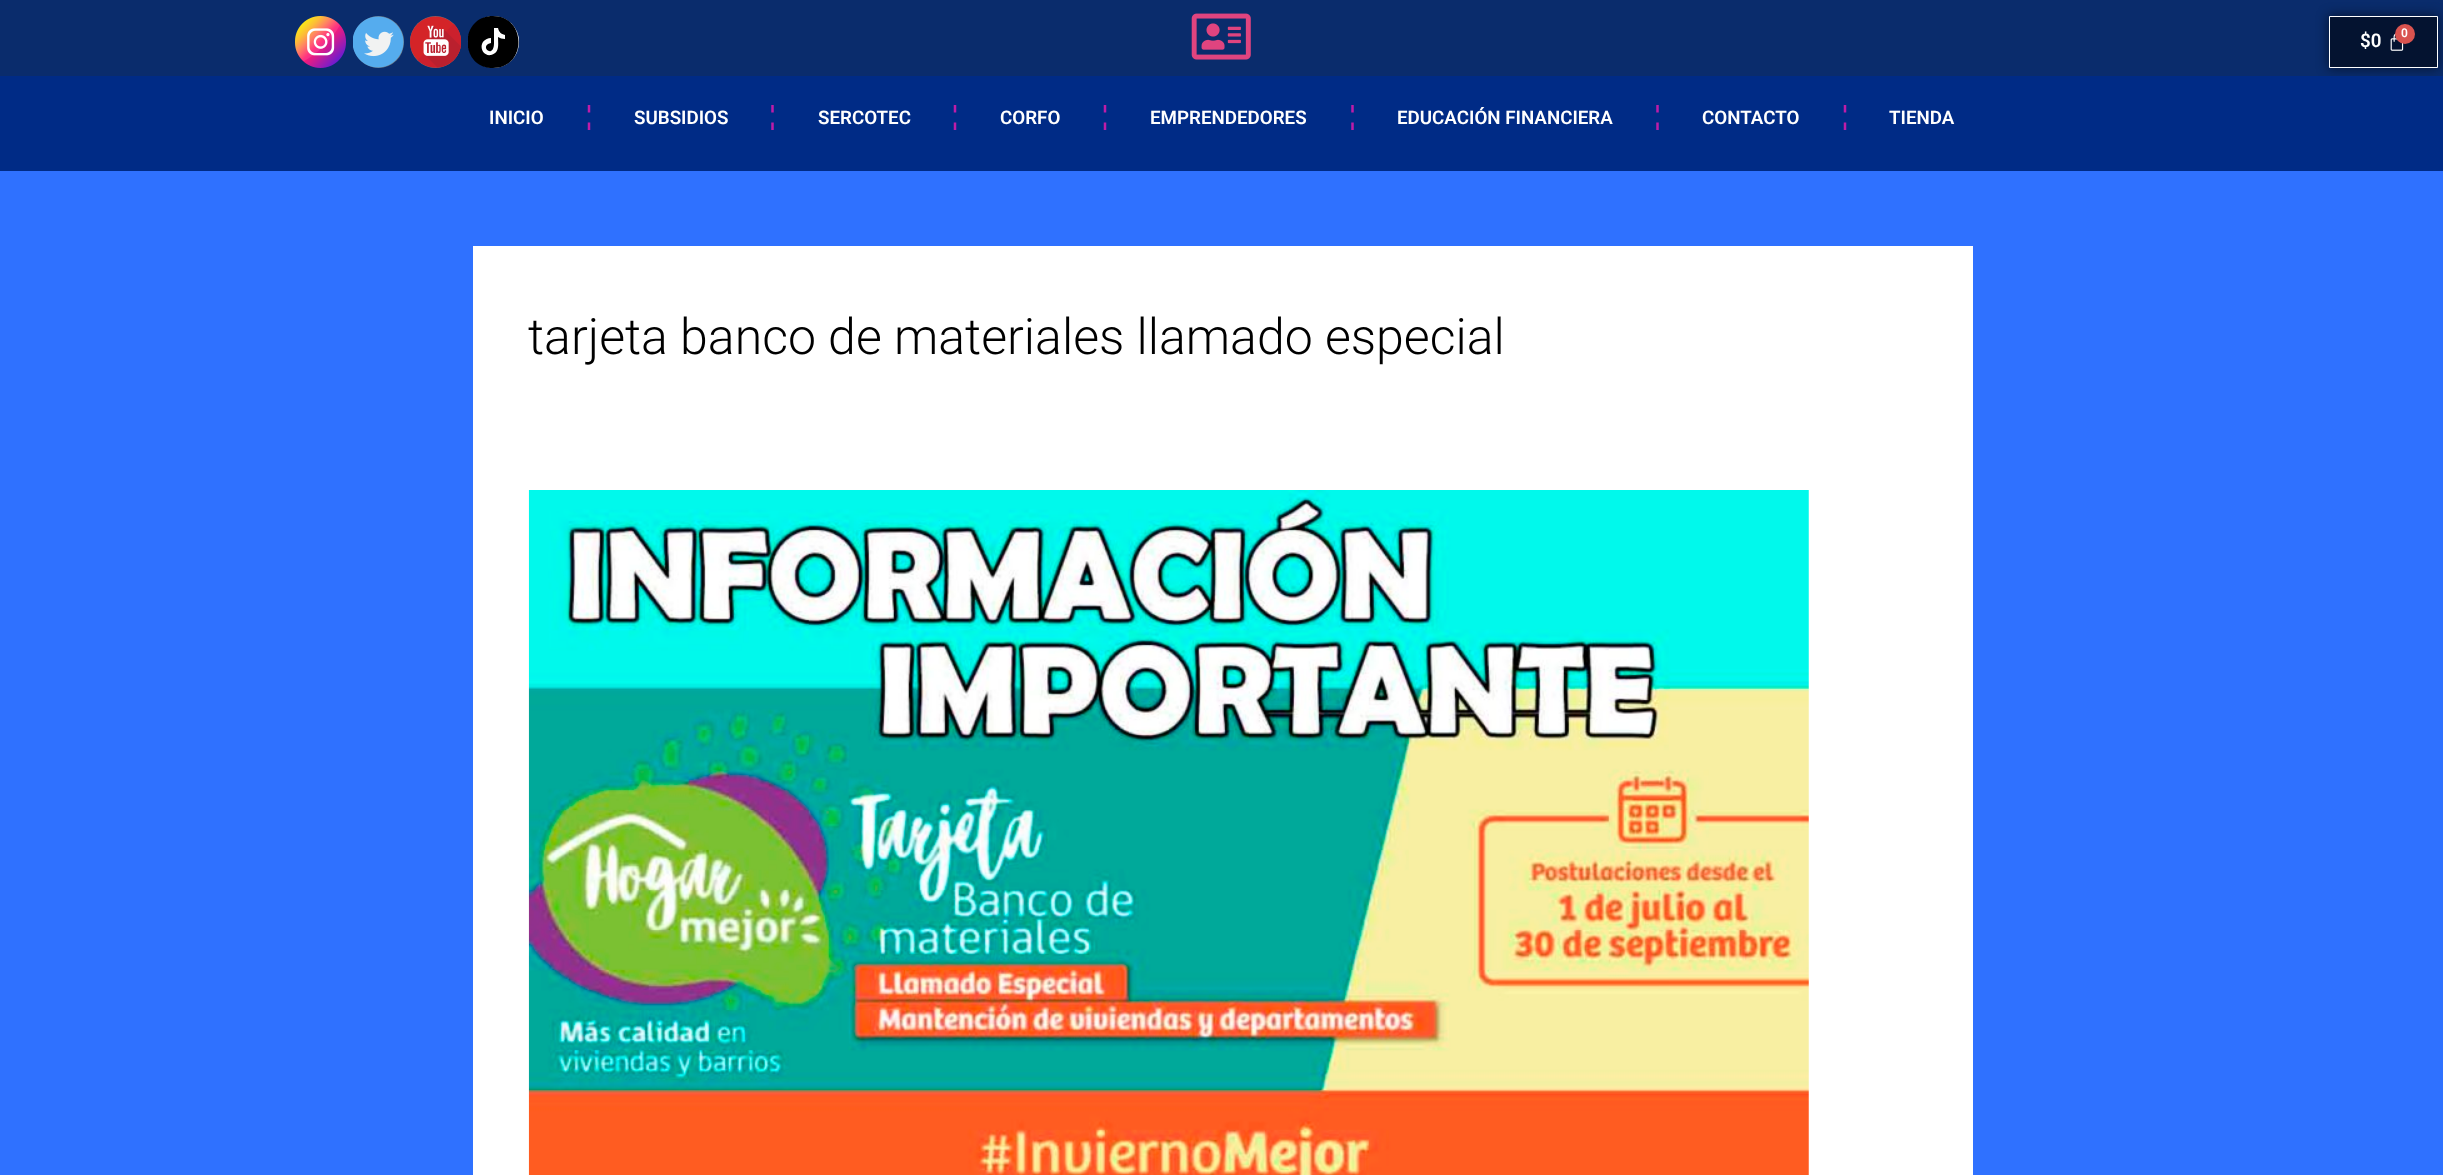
(async () => {
const canvas = document.querySelector("canvas")
canvas.width = 2443
canvas.height = 1175
const c = canvas.getContext("2d")
c.miterLimit = 4
c.fontKerning = "normal"
function T(s,x,y){c.fillText(s,x,y)}
function R(x,y,w,h){c.fillRect(x,y,w,h)}
function Q(x,y,w,h,r){c.beginPath();c.roundRect(x,y,w,h,r);c.fill()}
async function I(src,x,y,w,h){const img=new Image();img.src=src;await img.decode();c.drawImage(img,x,y,w,h)}
let path
c.fillStyle="#2f71ff"
R(0,0,2443,1175)
c.fillStyle="#0a2c6c"
R(0,0,2443,76)
await I("1.png",295,16,51,52)
c.fillStyle="#69727d"
Q(353,16,51,52,25.5)
await I("2.png",353,16,51,52)
Q(410,16,51,52,25.5)
await I("3.png",410,16,51,52)
c.fillStyle="#fff"
Q(468,16,51,52,25.5)
c.save()
c.beginPath()
c.rect(468,16,51,52)
c.clip()
c.fillStyle="#000"
path = new Path2D("M493 16c-34 0-34 52 0 52c34 0 34-52 0-52zm12 23c-3 0-5-1-7-2c0 7 2 16-7 18c-11 2-14-16 0-17v5c-13 3 3 17 3 0v-15h4c1 4 3 6 7 7z")
c.fill(path)
c.restore()
await I("4.png",1191,13,60,47)
c.save()
path = new Path2D("M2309 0h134v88h-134zm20 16h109v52h-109z")
c.clip(path,"evenodd")
c.fillStyle="#00000080"
c.filter="blur(6px)"
c.beginPath()
c.rect(2328,15,111,54)
c.fill()
c.filter="none"
c.restore()
c.fillStyle="#0000008c"
c.beginPath()
c.rect(2329.5,16.5,108,51)
c.fill()
c.strokeStyle="#fff"
c.stroke()
c.font="600 18.75px Roboto"
c.fillStyle="#fff"
T("$0",2360,47)
await I("5.png",2390,33,14,18)
c.fillStyle="#d9534f"
c.beginPath()
c.arc(2405,34,10,0,7)
c.fill()
c.font="600 12px Roboto"
c.fillStyle="#fff"
T("0",2401,37)
c.fillStyle="#002b86"
R(0,76,2443,95)
c.font="600 18.75px Roboto"
c.fillStyle="#fff"
T("INICIO",489,124)
path = new Path2D("M589 105v7.5m0 10v7.5")
c.strokeStyle="#bf1ca8"
c.lineWidth=2.5
c.stroke(path)
T("SUBSIDIOS",634,124)
path = new Path2D("M772.5 105v7.5m0 10v7.5")
c.stroke(path)
T("SERCOTEC",818,124)
path = new Path2D("M955 105v7.5m0 10v7.5")
c.stroke(path)
T("CORFO",1000,124)
path = new Path2D("M1105 105v7.5m0 10v7.5")
c.stroke(path)
T("EMPRENDEDORES",1150,124)
path = new Path2D("M1352.5 105v7.5m0 10v7.5")
c.stroke(path)
T("EDUCACIÓN FINANCIERA",1397,124)
path = new Path2D("M1657.5 105v7.5m0 10v7.5")
c.stroke(path)
T("CONTACTO",1702,124)
path = new Path2D("M1845 105v7.5m0 10v7.5")
c.stroke(path)
T("TIENDA",1889,124)
R(473,246,1500,929)
c.font="300 50px Roboto"
c.fillStyle="#000"
T("tarjeta banco de materiales llamado especial",528,354)
await I("6.png",528,490,1281,685)
})()
